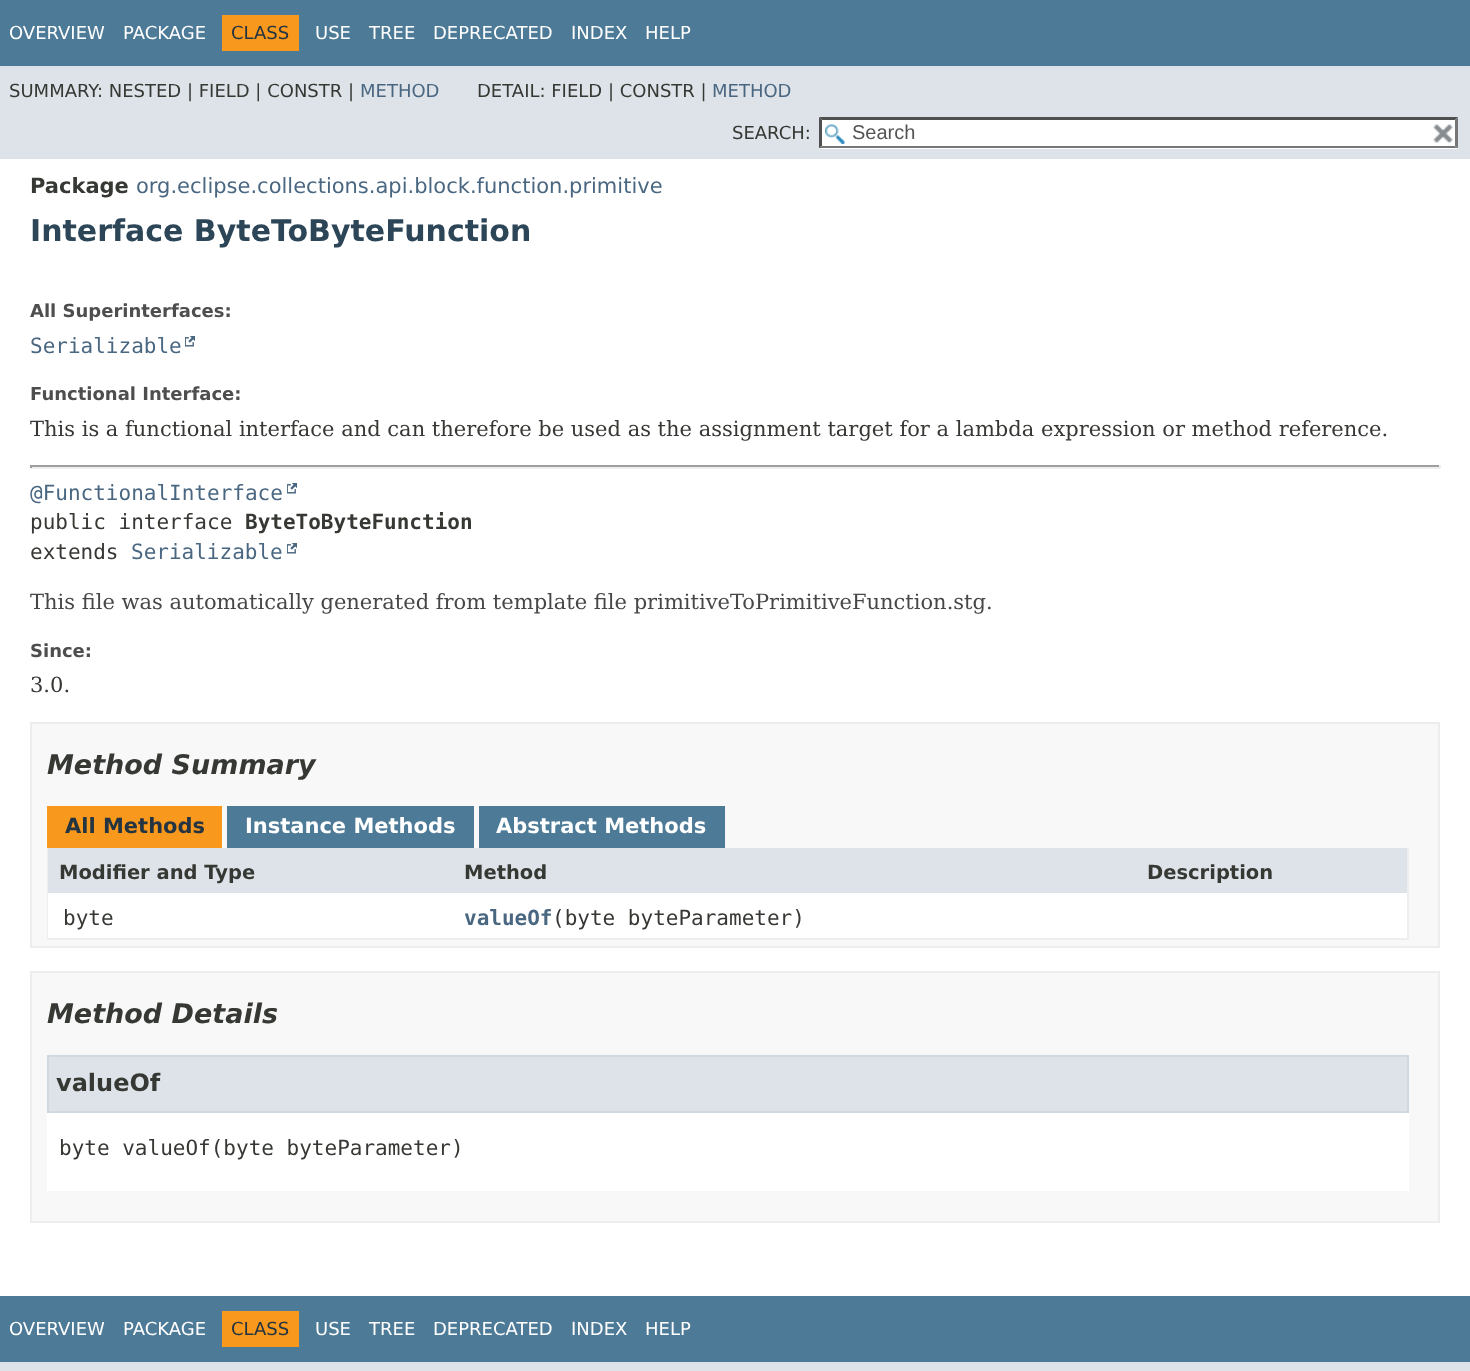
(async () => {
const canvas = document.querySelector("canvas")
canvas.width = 1470
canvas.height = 1371
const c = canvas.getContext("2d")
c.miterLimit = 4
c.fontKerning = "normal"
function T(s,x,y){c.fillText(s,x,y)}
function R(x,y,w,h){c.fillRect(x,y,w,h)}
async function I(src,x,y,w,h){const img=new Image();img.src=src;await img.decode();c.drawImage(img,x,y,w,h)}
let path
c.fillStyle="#fff"
R(0,0,1470,1371)
c.fillStyle="#4d7a97"
R(0,0,1470,66)
c.font="18px DejaVu Sans"
c.fillStyle="#fff"
T("OVERVIEW",9,39)
T("PACKAGE",123,39)
c.fillStyle="#f8981d"
R(222,15,77,36)
c.fillStyle="#253441"
T("CLASS",231,39)
c.fillStyle="#fff"
T("USE",315,39)
T("TREE",369,39)
T("DEPRECATED",433,39)
T("INDEX",571,39)
T("HELP",645,39)
c.fillStyle="#dee3e9"
R(0,66,1470,93)
c.fillStyle="#353833"
T("SUMMARY: NESTED | FIELD | CONSTR |",9,97)
c.fillStyle="#4a6782"
T("METHOD",360,97)
c.fillStyle="#353833"
T("DETAIL: FIELD | CONSTR |",477,97)
c.fillStyle="#4a6782"
T("METHOD",712,97)
c.fillStyle="#353833"
T("SEARCH:",732,139)
c.fillStyle="#fff"
R(819,117,639,32)
await I("1.png",825,124,20,20)
c.fillStyle="#4f4f4f"
path = new Path2D("M819 117h639l-3 3h-633z")
c.fill(path)
c.fillStyle="#767676"
path = new Path2D("M1458 117v31.5l-3-3v-25.5z")
c.fill(path)
path = new Path2D("M1458 148h-639l3-2h633z")
c.fill(path)
c.fillStyle="#4f4f4f"
path = new Path2D("M819 148.5v-31.5l3 3v25.5z")
c.fill(path)
c.font="20px Liberation Sans"
c.fillStyle="#545454"
T("Search",852,139)
await I("2.png",1433,124,20,19)
c.font="bold 21px DejaVu Sans"
c.fillStyle="#353833"
T("Package",30,193)
c.font="21px DejaVu Sans"
c.fillStyle="#4a6782"
T("org.eclipse.collections.api.block.function.primitive",136,193)
c.font="bold 30px DejaVu Sans"
c.fillStyle="#2c4557"
T("Interface ByteToByteFunction",30,241)
c.font="bold 18px DejaVu Sans"
c.fillStyle="#4e4e4e"
T("All Superinterfaces:",30,317)
c.font="21px DejaVu Sans Mono"
c.fillStyle="#4a6782"
T("Serializable",30,353)
await I("3.png",185,336,10,11)
c.font="bold 18px DejaVu Sans"
c.fillStyle="#4e4e4e"
T("Functional Interface:",30,400)
c.font="21px DejaVu Serif"
c.fillStyle="#353833"
T("This is a functional interface and can therefore be used as the assignment target for a lambda expression or method reference.",30,436)
c.fillStyle="#9f9f9f"
R(30,465,1410,2)
c.fillStyle="#eee"
R(1439,465,2,3)
R(30,467,1410,2)
c.fillStyle="#9f9f9f"
R(30,465,2,3)
c.font="21px DejaVu Sans Mono"
c.fillStyle="#4a6782"
T("@FunctionalInterface",30,500)
await I("3.png",287,483,10,11)
c.fillStyle="#353833"
T("public interface",30,529)
c.font="bold 21px DejaVu Sans Mono"
T("ByteToByteFunction",245,529)
c.font="21px DejaVu Sans Mono"
T("extends",30,559)
c.fillStyle="#4a6782"
T("Serializable",131,559)
await I("3.png",287,543,10,11)
c.font="21px DejaVu Serif"
c.fillStyle="#474747"
T("This file was automatically generated from template file primitiveToPrimitiveFunction.stg.",30,609)
c.font="bold 18px DejaVu Sans"
c.fillStyle="#4e4e4e"
T("Since:",30,657)
c.font="21px DejaVu Serif"
c.fillStyle="#353833"
T("3.0.",30,692)
c.fillStyle="#f8f8f8"
c.beginPath()
c.rect(31,723,1408,224)
c.fill()
c.strokeStyle="#ededed"
c.lineWidth=2
c.stroke()
c.font="italic bold 27px DejaVu Sans"
c.fillStyle="#353833"
T("Method Summary",47,774)
c.fillStyle="#f8981d"
R(47,806,175,42)
c.font="bold 21px DejaVu Sans"
c.fillStyle="#253441"
T("All Methods",65,833)
c.fillStyle="#4d7a97"
R(227,806,247,42)
c.fillStyle="#fff"
T("Instance Methods",245,833)
c.fillStyle="#4d7a97"
R(479,806,246,42)
c.fillStyle="#fff"
T("Abstract Methods",496,833)
c.fillStyle="#eee"
R(1407,848,2,91)
R(47,938,1362,2)
R(47,848,2,91)
c.fillStyle="#dee3e9"
R(48,848,1359,45)
c.font="bold 19.5px DejaVu Sans"
c.fillStyle="#353833"
T("Modifier and Type",59,879)
T("Method",464,879)
T("Description",1147,879)
c.fillStyle="#fff"
R(48,893,1359,45)
c.font="21px DejaVu Sans Mono"
c.fillStyle="#353833"
T("byte",63,925)
c.font="bold 21px DejaVu Sans Mono"
c.fillStyle="#4a6782"
T("valueOf",464,925)
c.font="21px DejaVu Sans Mono"
c.fillStyle="#353833"
T("(byte byteParameter)",552,925)
c.fillStyle="#f8f8f8"
c.beginPath()
c.rect(31,972,1408,250)
c.fill()
c.stroke()
c.font="italic bold 27px DejaVu Sans"
c.fillStyle="#353833"
T("Method Details",47,1023)
c.fillStyle="#fff"
R(47,1113,1362,78)
c.fillStyle="#dee3e9"
c.beginPath()
c.rect(48,1056,1360,56)
c.fill()
c.strokeStyle="#d0d9e0"
c.stroke()
c.font="bold 24px DejaVu Sans"
c.fillStyle="#353833"
T("valueOf",56,1091)
c.font="21px DejaVu Sans Mono"
T("byte valueOf(byte byteParameter)",59,1155)
c.fillStyle="#4d7a97"
R(0,1296,1470,66)
c.font="18px DejaVu Sans"
c.fillStyle="#fff"
T("OVERVIEW",9,1335)
T("PACKAGE",123,1335)
c.fillStyle="#f8981d"
R(222,1311,77,36)
c.fillStyle="#253441"
T("CLASS",231,1335)
c.fillStyle="#fff"
T("USE",315,1335)
T("TREE",369,1335)
T("DEPRECATED",433,1335)
T("INDEX",571,1335)
T("HELP",645,1335)
c.fillStyle="#dee3e9"
R(0,1362,1470,9)
})()
